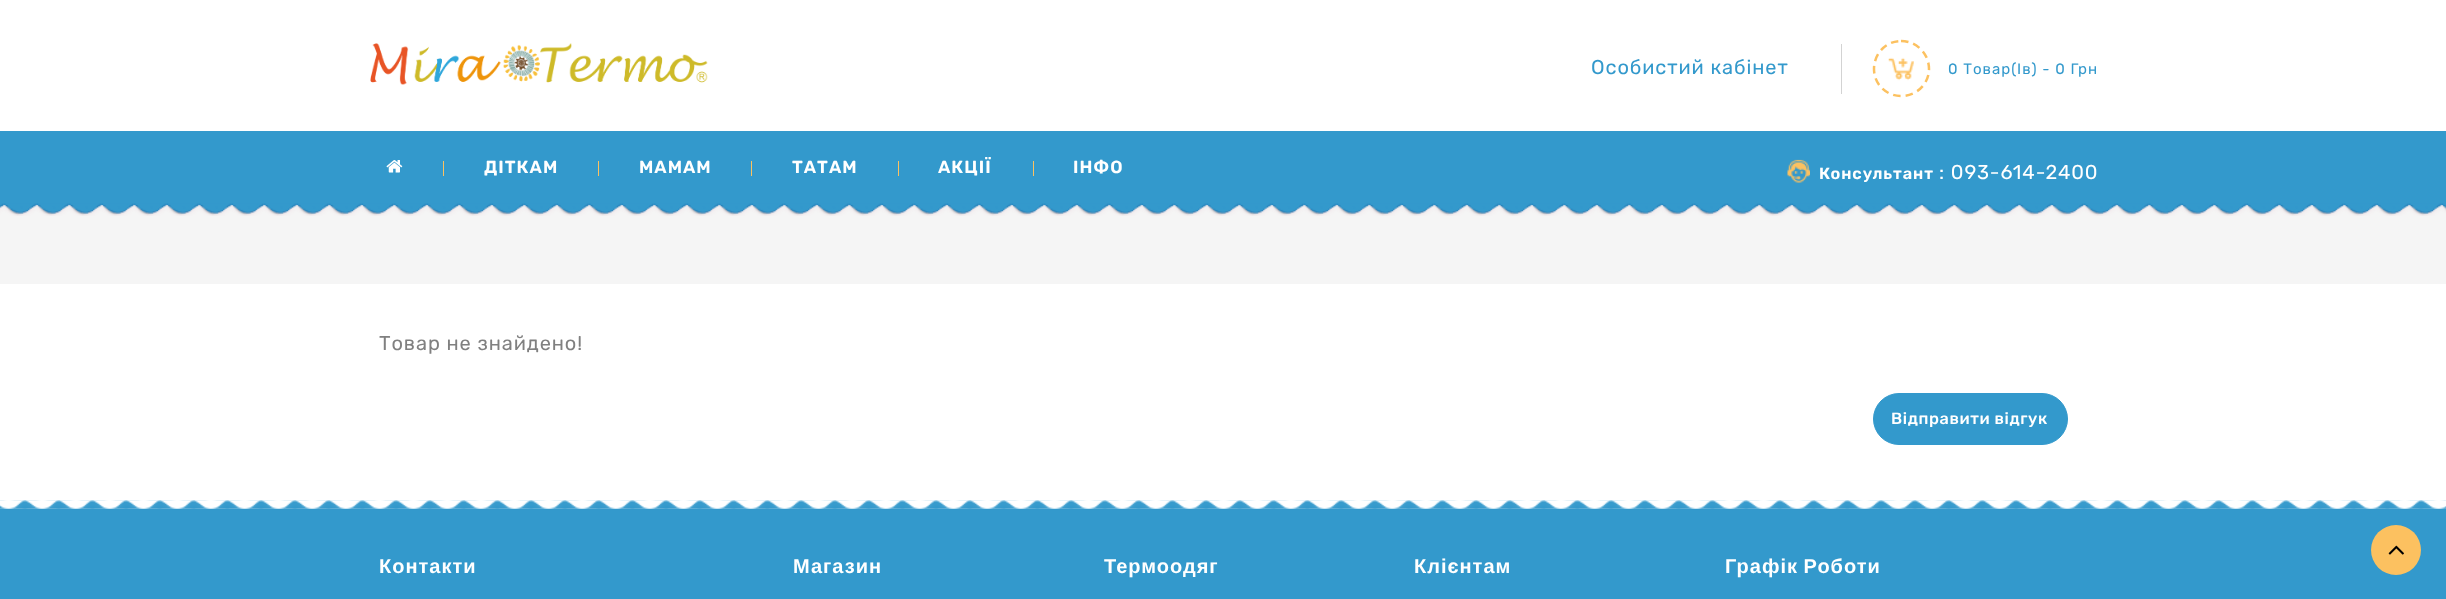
(async () => {
const canvas = document.querySelector("canvas")
canvas.width = 2446
canvas.height = 599
const c = canvas.getContext("2d")
c.miterLimit = 4
c.fontKerning = "normal"
function T(s,x,y){c.fillText(s,x,y)}
function R(x,y,w,h){c.fillRect(x,y,w,h)}
async function I(src,x,y,w,h){const img=new Image();img.src=src;await img.decode();c.drawImage(img,x,y,w,h)}
let path
c.fillStyle="#fff"
R(0,0,2446,599)
await I("1.png",370,43,338,42)
c.letterSpacing="0.9px"
c.font="20px Rubik"
c.fillStyle="#39c"
T("Особистий кабінет",1591,74)
c.fillStyle="#d3d3d3"
R(1841,44,1,50)
await I("2.png",1888,57,26,24)
path = new Path2D("M1901 41c15.5 0 28 12.5 28 28c0 15-12.5 27-28 27c-15 0-27-12-27-27c0-15.5 12-28 27-28z")
c.strokeStyle="#fcc160"
c.lineWidth=2.5
c.setLineDash([7.5,5])
c.stroke(path)
c.letterSpacing="1px"
c.font="15px Rubik"
c.fillStyle="#39c"
T("0 Товар(Ів) - 0 Грн",1948,74)
R(0,131,2446,73)
await I("3.png",386,160,17,13)
c.fillStyle="#fcc160"
R(443,161,1,15)
c.font="600 17.5px Rubik"
c.fillStyle="#fff"
T("ДІТКАМ",484,173)
c.fillStyle="#fcc160"
R(598,161,1,15)
c.fillStyle="#fff"
T("МАМАМ",639,173)
c.fillStyle="#fcc160"
R(751,161,1,15)
c.fillStyle="#fff"
T("ТАТАМ",792,173)
c.fillStyle="#fcc160"
R(898,161,1,15)
c.fillStyle="#fff"
T("АКЦІЇ",938,173)
c.fillStyle="#fcc160"
R(1033,161,1,15)
c.fillStyle="#fff"
T("ІНФО",1073,173)
await I("4.png",1787,159,23,24)
c.letterSpacing="0.9px"
c.font="600 16.25px Rubik"
T("Консультант",1819,179)
c.font="20px Rubik"
T(": 093-614-2400",1939,179)
c.fillStyle="#f5f5f5"
R(0,204,2446,80)
await I("5.png",0,203,2446,13)
c.fillStyle="#808080"
T("Товар не знайдено!",379,350)
c.fillStyle="#39c"
c.beginPath()
c.roundRect(1873.5,393.5,194,51,25.5)
c.fill()
c.strokeStyle="#39c"
c.lineWidth=1
c.setLineDash([])
c.stroke()
c.letterSpacing="0.6px"
c.font="500 16.25px Rubik"
c.fillStyle="#fff"
T("Відправити відгук",1891,424)
c.fillStyle="#39c"
R(0,500,2446,99)
await I("6.png",0,500,2446,9)
c.letterSpacing="1px"
c.font="bold 20px Liberation Sans"
c.fillStyle="#fff"
T("Контакти",379,573)
T("Магазин",793,573)
T("Термоодяг",1104,573)
T("Клієнтам",1414,573)
c.wordSpacing="-1px"
T("Графік Роботи",1725,573)
c.fillStyle="#fcc160"
c.beginPath()
c.arc(2396,550,25,0,7)
c.fill()
await I("7.png",2388,545,16,10)
})()
